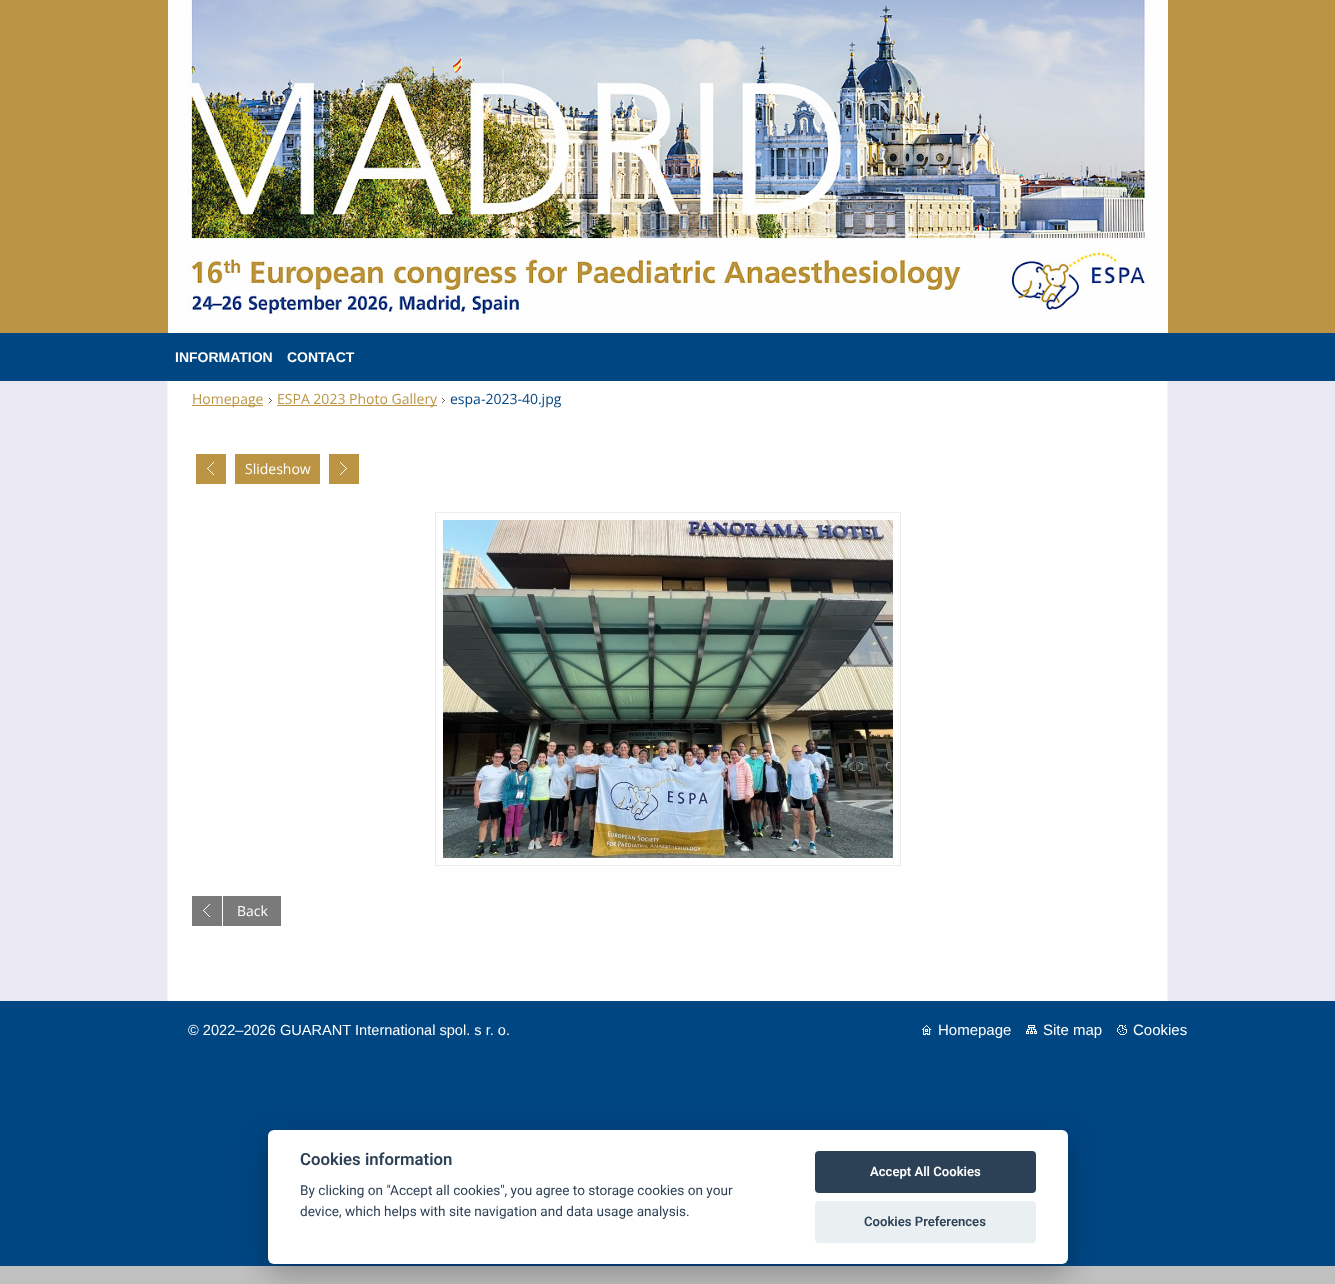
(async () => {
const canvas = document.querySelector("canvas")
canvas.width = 1335
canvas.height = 1284
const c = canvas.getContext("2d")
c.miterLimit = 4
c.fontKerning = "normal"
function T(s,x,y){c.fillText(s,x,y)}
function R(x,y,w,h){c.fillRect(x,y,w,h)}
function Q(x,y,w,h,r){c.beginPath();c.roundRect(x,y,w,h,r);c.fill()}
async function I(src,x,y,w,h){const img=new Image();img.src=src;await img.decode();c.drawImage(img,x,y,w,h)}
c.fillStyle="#c0c0c0"
R(0,0,1335,1284)
await I("1.png",0,381,1335,620)
c.fillStyle="#bb9543"
R(0,0,1335,333)
await I("2.png",168,0,1000,333)
c.fillStyle="#004683"
R(0,333,1335,48)
c.font="bold 14px Liberation Sans"
c.fillStyle="#fff"
T("INFORMATION",175,362)
T("CONTACT",287,362)
c.fillStyle="#bb9543"
R(192,405,71,1)
c.font="14px Open Sans"
T("Homepage",192,404)
await I("3.png",269,398,3,5)
R(277,405,160,1)
T("ESPA 2023 Photo Gallery",277,404)
await I("3.png",442,398,3,5)
c.fillStyle="#004683"
T("espa-2023-40.jpg",450,404)
c.fillStyle="#bb9543"
R(196,454,30,30)
await I("4.png",207,462,7,13)
R(235,454,85,30)
c.fillStyle="#fff"
T("Slideshow",245,474)
c.fillStyle="#bb9543"
R(329,454,30,30)
await I("5.png",340,462,7,13)
c.strokeStyle="#ececec"
c.strokeRect(435.5,512.5,465,353)
await I("6.png",443,520,450,338)
c.fillStyle="#7a7a7a"
R(192,896,89,30)
await I("7.png",203,904,7,13)
c.fillStyle="#fff"
R(222,896,1,30)
T("Back",237,916)
c.fillStyle="#004683"
R(0,1001,1335,265)
c.font="14.6px Liberation Sans"
c.fillStyle="#fff"
T("© 2022–2026 GUARANT International spol. s r. o.",188,1035)
await I("8.png",922,1025,10,10)
c.font="15px Liberation Sans"
T("Homepage",938,1035)
await I("9.png",1026,1025,12,9)
T("Site map",1043,1035)
await I("10.png",1117,1025,11,10)
T("Cookies",1133,1035)
c.fillStyle="#02020347"
c.filter="blur(15px)"
c.beginPath()
c.roundRect(268,1140,800,134,6)
c.fill()
c.filter="none"
c.fillStyle="#fff"
Q(268,1130,800,134,6)
c.font="600 16.75px Roboto"
c.fillStyle="#2d4156"
T("Cookies information",300,1165)
c.font="13.6px Roboto"
T("By clicking on \"Accept all cookies\", you agree to storage cookies on your",300,1195)
T("device, which helps with site navigation and data usage analysis.",300,1216)
Q(815,1151,221,42,4)
c.font="600 13.1px Roboto"
c.fillStyle="#fff"
T("Accept All Cookies",870,1176)
c.fillStyle="#eaeff2"
Q(815,1201,221,42,4)
c.fillStyle="#2d4156"
T("Cookies Preferences",864,1226)
})()
